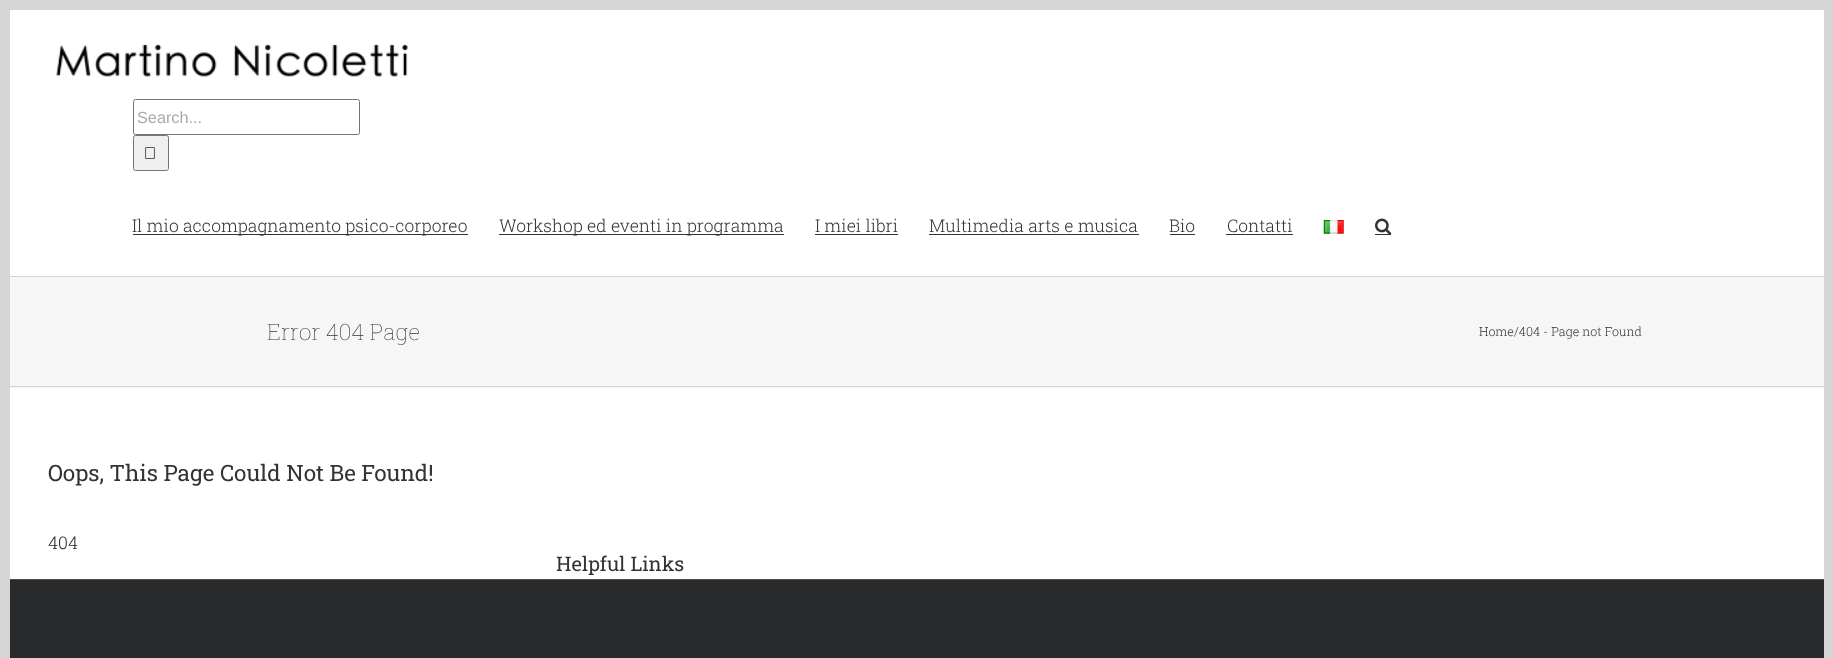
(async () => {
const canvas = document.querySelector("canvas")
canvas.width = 1833
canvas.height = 658
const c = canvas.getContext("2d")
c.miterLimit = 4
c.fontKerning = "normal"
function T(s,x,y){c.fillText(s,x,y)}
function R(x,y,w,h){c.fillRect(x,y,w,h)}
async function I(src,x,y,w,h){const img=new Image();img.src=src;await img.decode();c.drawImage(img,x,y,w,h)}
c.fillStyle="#d7d6d6"
R(0,0,1833,658)
c.fillStyle="#fff"
R(10,10,1814,569)
await I("1.png",56,44,352,33)
c.beginPath()
c.roundRect(133.5,99.5,226,35,2)
c.strokeStyle="#767676"
c.stroke()
c.font="16.25px Liberation Sans"
c.fillStyle="#aaa9a9"
T("Search...",137,123)
c.fillStyle="#efefef"
c.beginPath()
c.roundRect(133.5,135.5,35,35,2)
c.fill()
c.stroke()
await I("2.png",145,147,10,12)
c.fillStyle="#333"
R(133,234,335,1)
c.font="300 17.5px Roboto Slab"
T("Il mio accompagnamento psico-corporeo",132,232)
R(499,234,285,1)
T("Workshop ed eventi in programma",499,232)
T("I miei libri",815,232)
R(815,234,83,1)
T("Multimedia arts e musica",929,232)
R(929,234,210,1)
T("Bio",1169,232)
R(1170,234,25,1)
T("Contatti",1227,232)
R(1226,234,67,1)
await I("3.png",1323,220,21,14)
R(1375,234,16,1)
await I("4.png",1375,218,17,17)
c.fillStyle="#f6f6f6"
R(10,277,1814,111)
c.fillStyle="#d2d3d4"
R(10,276,1814,1)
R(10,386,1814,1)
c.font="100 22.5px Roboto Slab"
c.fillStyle="#333"
T("Error 404 Page",267,340)
c.font="300 12.5px Roboto Slab"
T("Home/404 - Page not Found",1479,336)
c.font="22.5px Roboto Slab"
T("Oops, This Page Could Not Be Found!",48,481)
c.font="300 17.5px Roboto Slab"
c.fillStyle="#262626"
T("404",48,549)
c.font="20px Roboto Slab"
c.fillStyle="#333"
T("Helpful Links",556,571)
c.fillStyle="#282a2b"
R(10,580,1814,78)
c.fillStyle="#4b4c4d"
R(10,579,1814,1)
})()
